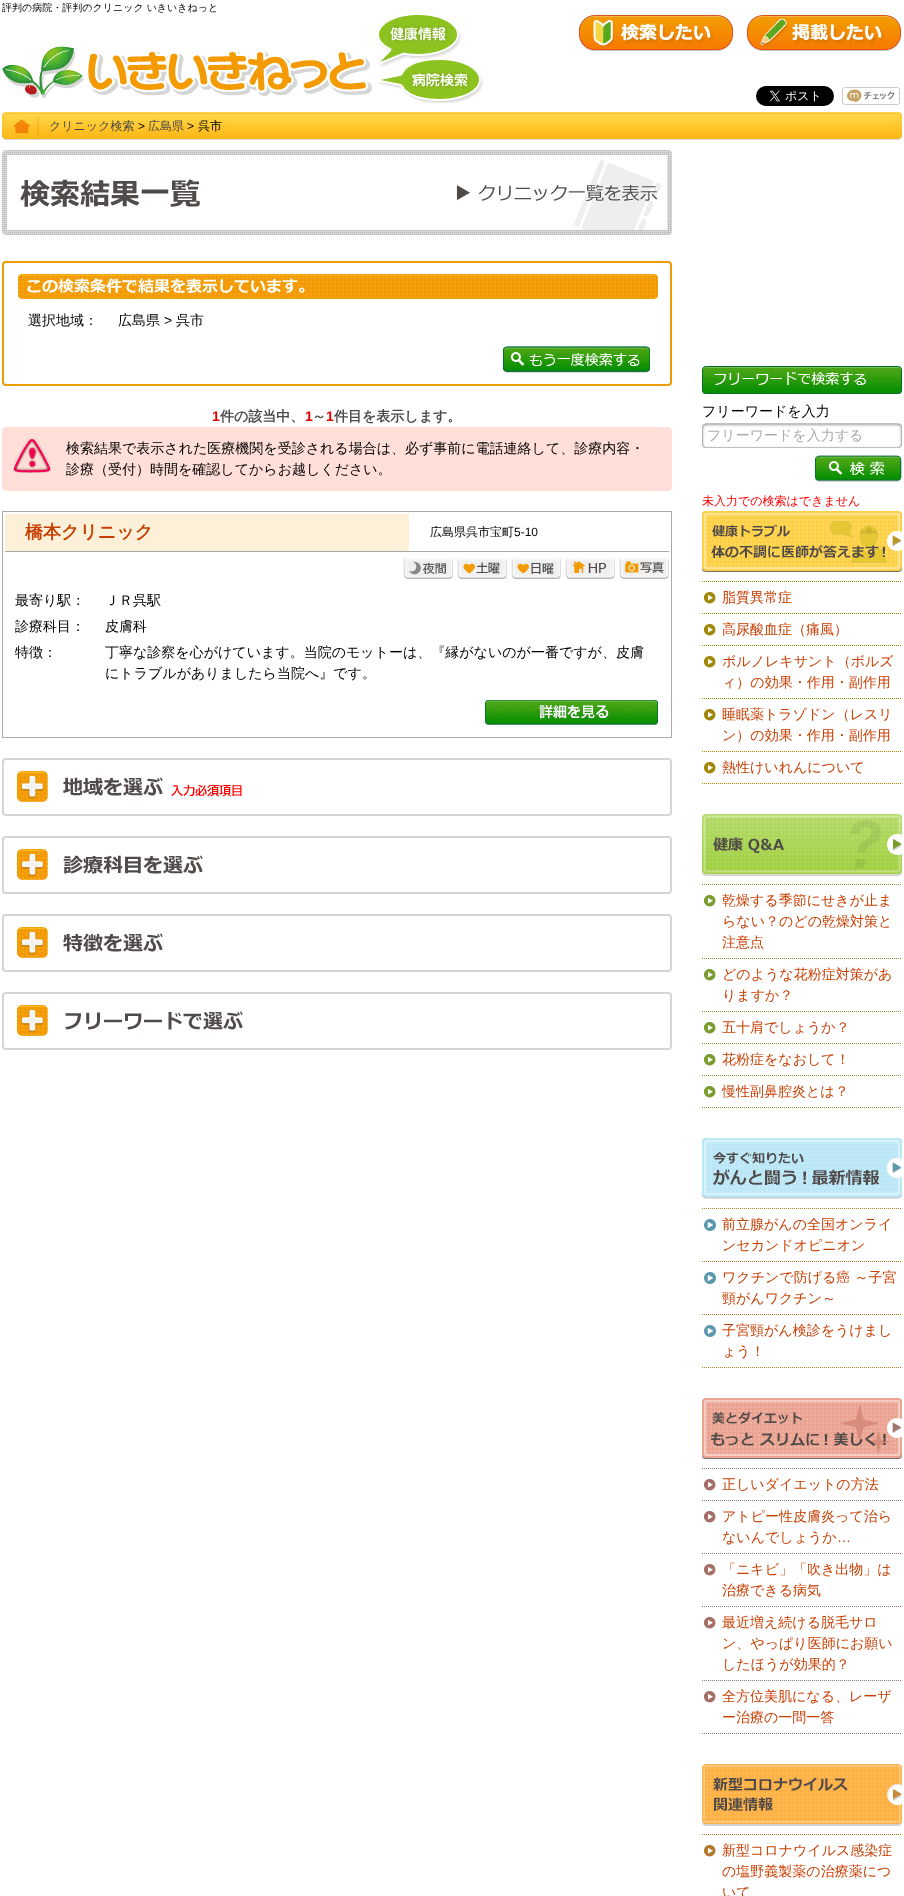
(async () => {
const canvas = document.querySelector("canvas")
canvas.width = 904
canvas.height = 1896
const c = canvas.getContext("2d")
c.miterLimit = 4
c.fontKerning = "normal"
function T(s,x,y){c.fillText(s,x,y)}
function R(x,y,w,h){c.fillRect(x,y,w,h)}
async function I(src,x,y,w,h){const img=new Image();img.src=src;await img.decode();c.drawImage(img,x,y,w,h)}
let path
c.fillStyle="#fff"
R(0,0,904,1896)
c.font="500 10px WenQuanYi Zen Hei"
c.fillStyle="#000"
T("評判の病院・評判のクリニック いきいきねっと",2,11)
await I("1.png",2,15,481,88)
await I("2.png",579,15,154,36)
await I("3.png",747,15,154,36)
await I("4.png",756,86,78,20)
await I("5.png",842,87,58,18)
await I("6.png",2,112,900,28)
await I("7.png",2,113,37,26)
c.font="500 12px WenQuanYi Zen Hei"
c.fillStyle="#4c4847"
T("クリニック検索",49,130)
c.font="12px Liberation Sans"
c.fillStyle="#000"
T(">",138,130)
c.font="500 12px WenQuanYi Zen Hei"
c.fillStyle="#4c4847"
T("広島県",148,130)
c.font="12px Liberation Sans"
c.fillStyle="#000"
T(">",187,130)
c.font="500 12px WenQuanYi Zen Hei"
T("呉市",198,130)
await I("8.png",2,150,670,85)
c.beginPath()
c.roundRect(3,262,668,123,3)
c.strokeStyle="#ed9c04"
c.lineWidth=2
c.stroke()
await I("9.png",18,274,640,25)
c.font="500 14px WenQuanYi Zen Hei"
T("選択地域：",28,325)
T("広島県",118,325)
c.font="14px Liberation Sans"
T(">",164,325)
c.font="500 14px WenQuanYi Zen Hei"
T("呉市",176,325)
await I("10.png",503,346,147,27)
c.font="bold 14px Liberation Sans"
c.fillStyle="#e20300"
T("1",212,421)
c.font="bold 14px WenQuanYi Zen Hei"
c.fillStyle="#4c4847"
T("件の該当中、",220,421)
c.font="bold 14px Liberation Sans"
c.fillStyle="#e20300"
T("1",305,421)
c.font="bold 14px WenQuanYi Zen Hei"
c.fillStyle="#4c4847"
T("～",312,421)
c.font="bold 14px Liberation Sans"
c.fillStyle="#e20300"
T("1",326,421)
c.font="bold 14px WenQuanYi Zen Hei"
c.fillStyle="#4c4847"
T("件目を表示します。",334,421)
c.fillStyle="#ffdfd8"
c.beginPath()
c.roundRect(2.5,427.5,669,63,3.5)
c.fill()
c.strokeStyle="#ffdfd8"
c.lineWidth=1
c.stroke()
await I("11.png",13,438,38,35)
c.font="500 14px WenQuanYi Zen Hei"
c.fillStyle="#000"
T("検索結果で表示された医療機関を受診される場合は、必ず事前に電話連絡して、診療内容・",66,453)
T("診療（受付）時間を確認してからお越しください。",66,474)
c.strokeStyle="#aaa"
c.strokeRect(2.5,511.5,669,226)
c.fillStyle="#fcf0d8"
R(5,514,404,37)
c.fillStyle="#aaa"
R(5,551,664,1)
c.font="bold 18px WenQuanYi Zen Hei"
c.fillStyle="#c73e02"
T("橋本クリニック",25,538)
c.font="500 12px WenQuanYi Zen Hei"
c.fillStyle="#000"
T("広島県呉市宝町",430,536)
c.font="12px Liberation Sans"
T("5-10",514,536)
await I("12.png",403,557,50,22)
await I("13.png",457,557,50,22)
await I("14.png",511,557,50,22)
await I("15.png",565,557,50,22)
await I("16.png",619,557,50,22)
c.font="500 14px WenQuanYi Zen Hei"
T("最寄り駅：",15,605)
T("ＪＲ呉駅",105,605)
T("診療科目：",15,631)
T("皮膚科",105,631)
T("特徴：",15,657)
T("丁寧な診察を心がけています。当院のモットーは、『縁がないのが一番ですが、皮膚",105,657)
T("にトラブルがありましたら当院へ』です。",105,678)
await I("17.png",485,700,173,25)
c.beginPath()
c.roundRect(3,759,668,56,3)
c.strokeStyle="#d5d5d5"
c.lineWidth=2
c.stroke()
await I("18.png",17,771,225,31)
c.beginPath()
c.roundRect(3,837,668,56,3)
c.stroke()
await I("19.png",17,849,186,31)
c.beginPath()
c.roundRect(3,915,668,56,3)
c.stroke()
await I("20.png",17,927,146,31)
c.beginPath()
c.roundRect(3,993,668,56,3)
c.stroke()
await I("21.png",17,1005,226,31)
await I("22.png",702,366,200,28)
T("フリーワードを入力",702,416)
await I("23.png",702,423,200,25)
c.fillStyle="#aaa"
T("フリーワードを入力する",707,440)
await I("24.png",815,455,87,27)
c.font="500 12px WenQuanYi Zen Hei"
c.fillStyle="#f00"
T("未入力での検索はできません",702,505)
await I("25.png",702,511,200,61)
path = new Path2D("M702 581.5h200")
c.strokeStyle="#a48705"
c.lineWidth=1
c.setLineDash([1,1])
c.stroke(path)
await I("26.png",704,591,12,13)
path = new Path2D("M702 613.5h200")
c.stroke(path)
c.font="500 14px WenQuanYi Zen Hei"
c.fillStyle="#c73e02"
T("脂質異常症",722,602)
await I("26.png",704,623,12,13)
path = new Path2D("M702 645.5h200")
c.stroke(path)
T("高尿酸血症（痛風）",722,634)
await I("26.png",704,655,12,13)
path = new Path2D("M702 698.5h200")
c.stroke(path)
T("ボルノレキサント（ボルズ",722,666)
T("ィ）の効果・作用・副作用",722,687)
await I("26.png",704,708,12,13)
path = new Path2D("M702 751.5h200")
c.stroke(path)
T("睡眠薬トラゾドン（レスリ",722,719)
T("ン）の効果・作用・副作用",722,740)
await I("26.png",704,761,12,13)
path = new Path2D("M702 783.5h200")
c.stroke(path)
T("熱性けいれんについて",722,772)
await I("27.png",702,814,200,62)
path = new Path2D("M702 884.5h200")
c.strokeStyle="#7f9830"
c.stroke(path)
await I("28.png",704,895,12,12)
path = new Path2D("M702 958.5h200")
c.stroke(path)
T("乾燥する季節にせきが止ま",722,905)
T("らない？のどの乾燥対策と",722,926)
T("注意点",722,947)
await I("28.png",704,969,12,12)
path = new Path2D("M702 1011.5h200")
c.stroke(path)
T("どのような花粉症対策があ",722,979)
T("りますか？",722,1000)
await I("28.png",704,1022,12,12)
path = new Path2D("M702 1043.5h200")
c.stroke(path)
T("五十肩でしょうか？",722,1032)
await I("28.png",704,1054,12,12)
path = new Path2D("M702 1075.5h200")
c.stroke(path)
T("花粉症をなおして！",722,1064)
await I("28.png",704,1086,12,12)
path = new Path2D("M702 1107.5h200")
c.stroke(path)
T("慢性副鼻腔炎とは？",722,1096)
await I("29.png",702,1138,200,61)
path = new Path2D("M702 1208.5h200")
c.strokeStyle="#b67728"
c.stroke(path)
await I("30.png",704,1219,12,12)
path = new Path2D("M702 1261.5h200")
c.stroke(path)
T("前立腺がんの全国オンライ",722,1229)
T("ンセカンドオピニオン",722,1250)
await I("30.png",704,1272,12,12)
path = new Path2D("M702 1314.5h200")
c.stroke(path)
T("ワクチンで防げる癌 ～子宮",722,1282)
T("頸がんワクチン～",722,1303)
await I("30.png",704,1325,12,12)
path = new Path2D("M702 1367.5h200")
c.stroke(path)
T("子宮頸がん検診をうけまし",722,1335)
T("ょう！",722,1356)
await I("31.png",702,1398,200,61)
path = new Path2D("M702 1468.5h200")
c.strokeStyle="#96766b"
c.stroke(path)
await I("32.png",704,1478,12,13)
path = new Path2D("M702 1500.5h200")
c.stroke(path)
T("正しいダイエットの方法",722,1489)
await I("32.png",704,1510,12,13)
path = new Path2D("M702 1553.5h200")
c.stroke(path)
T("アトピー性皮膚炎って治ら",722,1521)
T("ないんでしょうか",722,1542)
c.font="14px Liberation Sans"
T("…",837,1542)
await I("32.png",704,1563,12,13)
path = new Path2D("M702 1606.5h200")
c.stroke(path)
c.font="500 14px WenQuanYi Zen Hei"
T("「ニキビ」「吹き出物」は",722,1574)
T("治療できる病気",722,1595)
await I("32.png",704,1616,12,13)
path = new Path2D("M702 1680.5h200")
c.stroke(path)
T("最近増え続ける脱毛サロ",722,1627)
T("ン、やっぱり医師にお願い",722,1648)
T("したほうが効果的？",722,1669)
await I("32.png",704,1690,12,13)
path = new Path2D("M702 1733.5h200")
c.stroke(path)
T("全方位美肌になる、レーザ",722,1701)
T("ー治療の一問一答",722,1722)
await I("33.png",702,1764,200,62)
path = new Path2D("M702 1834.5h200")
c.strokeStyle="#b67728"
c.stroke(path)
await I("34.png",704,1844,12,13)
T("新型コロナウイルス感染症",722,1855)
T("の塩野義製薬の治療薬につ",722,1876)
T("いて",722,1897)
})()
